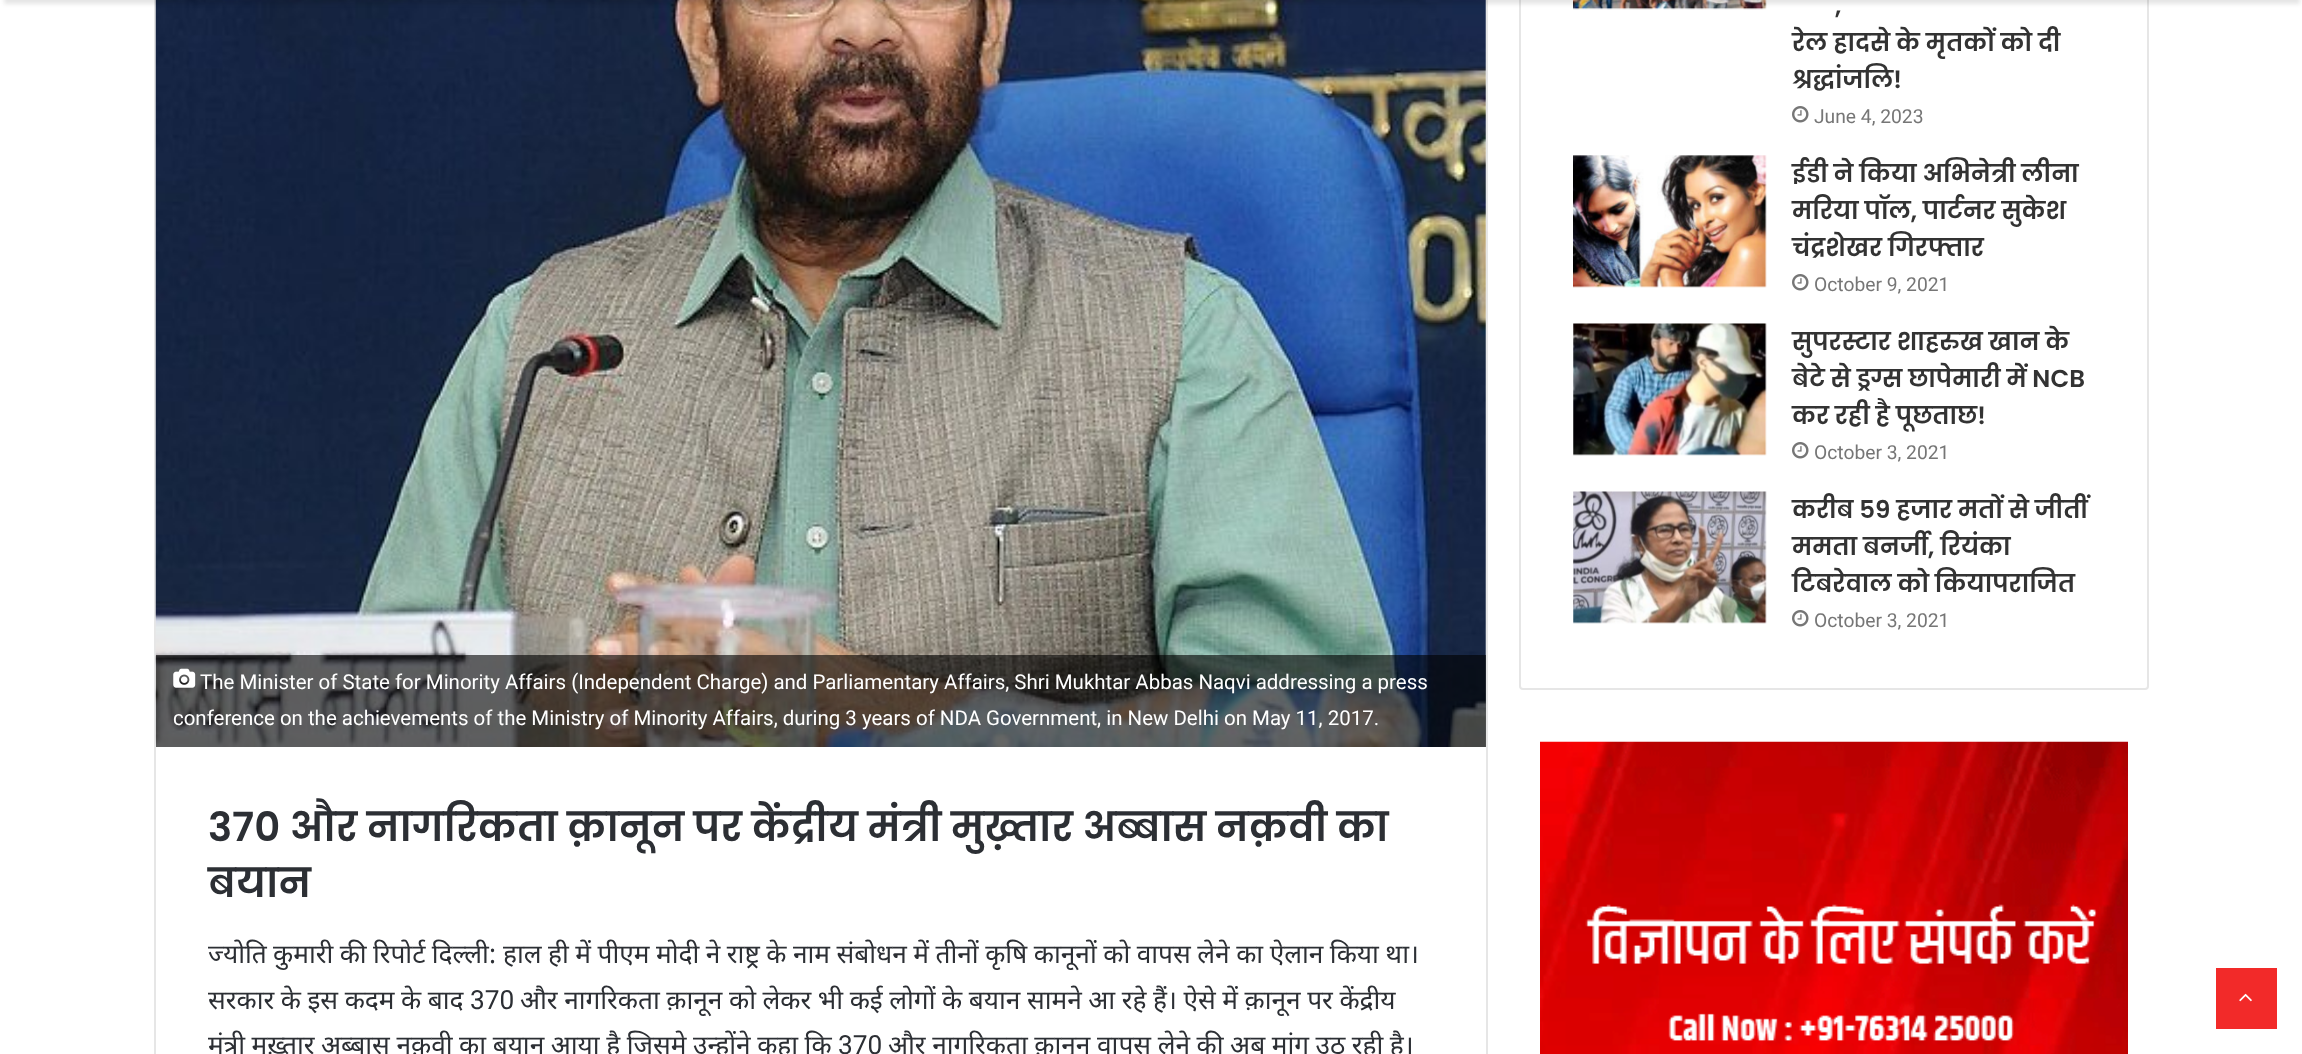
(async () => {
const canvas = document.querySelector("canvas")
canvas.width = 2302
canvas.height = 1054
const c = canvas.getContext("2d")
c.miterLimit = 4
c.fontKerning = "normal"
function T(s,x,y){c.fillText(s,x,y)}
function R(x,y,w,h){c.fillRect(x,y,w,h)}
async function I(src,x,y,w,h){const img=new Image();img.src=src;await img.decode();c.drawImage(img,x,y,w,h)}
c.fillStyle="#fff"
R(0,0,2302,1054)
c.beginPath()
c.roundRect(1520,-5,628,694,3)
c.strokeStyle="#e6e6e6"
c.lineWidth=2
c.stroke()
await I("1.png",1573,0,194,10)
c.strokeRect(155,-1,1332,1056)
await I("7.png",155,0,1331,747)
c.fillStyle="#0000001a"
c.filter="blur(2px)"
c.beginPath()
c.rect(4,-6,2296,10)
c.fill()
c.filter="none"
c.font="600 24.5px Poppins"
c.fillStyle="#333"
T(",",1835,14)
T("रेल हादसे के मृतकों को दी",1792,51)
T("श्रद्धांजलि!",1792,88)
await I("2.png",1792,106,17,17)
c.font="19.25px Roboto"
c.fillStyle="#767676"
T("June 4, 2023",1814,123)
await I("3.png",1573,155,194,133)
c.font="600 24.5px Poppins"
c.fillStyle="#333"
T("ईडी ने किया अभिनेत्री लीना",1792,182)
T("मरिया पॉल, पार्टनर सुकेश",1792,219)
T("चंद्रशेखर गिरफ्तार",1792,256)
await I("2.png",1792,274,17,17)
c.font="19.25px Roboto"
c.fillStyle="#767676"
T("October 9, 2021",1814,291)
await I("4.png",1573,323,194,133)
c.font="600 24.5px Poppins"
c.fillStyle="#333"
T("सुपरस्टार शाहरुख खान के",1792,350)
T("बेटे से ड्रग्स छापेमारी में NCB",1792,387)
T("कर रही है पूछताछ!",1792,424)
await I("2.png",1792,442,17,17)
c.font="19.25px Roboto"
c.fillStyle="#767676"
T("October 3, 2021",1814,459)
await I("5.png",1573,491,194,133)
c.font="600 24.5px Poppins"
c.fillStyle="#333"
T("करीब 59 हजार मतों से जीतीं",1792,518)
T("ममता बनर्जी, रियंका",1792,555)
T("टिबरेवाल को कियापराजित",1792,592)
await I("2.png",1792,610,17,17)
c.font="19.25px Roboto"
c.fillStyle="#767676"
T("October 3, 2021",1814,627)
await I("6.png",1540,741,588,313)
c.fillStyle="#00000099"
R(156,655,1330,92)
await I("8.png",173,668,23,20)
c.font="20.47px Roboto"
c.fillStyle="#fff"
T("The Minister of State for Minority Affairs (Independent Charge) and Parliamentary Affairs, Shri Mukhtar Abbas Naqvi addressing a press",200,689)
T("conference on the achievements of the Ministry of Minority Affairs, during 3 years of NDA Government, in New Delhi on May 11, 2017.",173,725)
c.font="600 40.25px Poppins"
c.fillStyle="#2c2f34"
T("370 और नागरिकता क़ानून पर केंद्रीय मंत्री मुख़्तार अब्बास नक़वी का",208,841)
T("बयान",208,897)
c.wordSpacing="-0.5px"
c.font="26.25px Noto Sans"
T("ज्योति कुमारी की रिपोर्ट दिल्ली:",208,963)
c.wordSpacing="-0.3px"
T("हाल ही में पीएम मोदी ने राष्ट्र के नाम संबोधन में तीनों कृषि कानूनों को वापस लेने का ऐलान किया था।",503,963)
c.wordSpacing="-0.25px"
T("सरकार के इस कदम के बाद",208,1009)
c.wordSpacing="0px"
c.font="26.25px Roboto"
T("370",470,1009)
c.wordSpacing="-0.25px"
c.font="26.25px Noto Sans"
T("और नागरिकता क़ानून को लेकर भी कई लोगों के बयान सामने आ रहे हैं। ऐसे में क़ानून पर केंद्रीय",520,1009)
T("मंत्री मुख़्तार अब्बास नक़वी का बयान आया है जिसमे उन्होंने कहा कि",208,1054)
c.wordSpacing="0px"
c.font="26.25px Roboto"
T("370",838,1054)
c.wordSpacing="-0.25px"
c.font="26.25px Noto Sans"
T("और नागरिकता क़ानून वापस लेने की अब मांग उठ रही है।",888,1054)
c.fillStyle="#f22a29"
R(2216,968,61,61)
await I("9.png",2239,993,13,9)
})()
